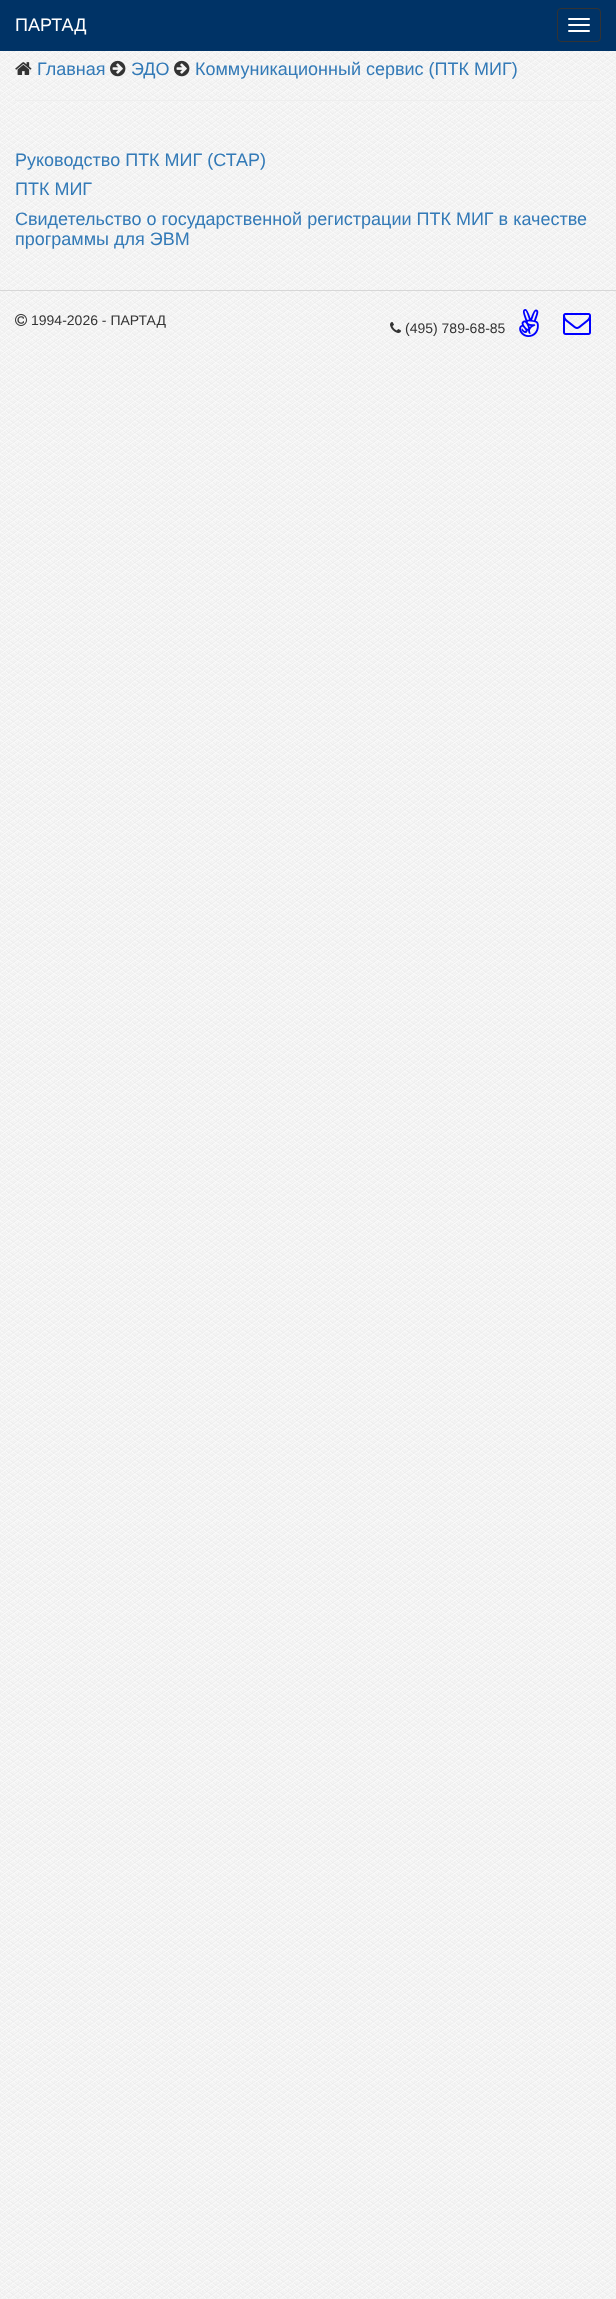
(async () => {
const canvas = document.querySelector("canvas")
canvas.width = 616
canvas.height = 2299
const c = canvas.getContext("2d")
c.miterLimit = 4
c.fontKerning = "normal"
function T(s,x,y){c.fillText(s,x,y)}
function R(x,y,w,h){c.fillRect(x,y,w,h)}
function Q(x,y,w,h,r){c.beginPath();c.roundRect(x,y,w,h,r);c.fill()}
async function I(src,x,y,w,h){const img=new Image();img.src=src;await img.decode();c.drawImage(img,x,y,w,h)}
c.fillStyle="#fff"
R(0,0,616,2299)
await I("1.png",0,51,616,2248)
c.fillStyle="#036"
R(0,0,616,51)
c.font="18px Liberation Sans"
c.fillStyle="#fff"
T("ПАРТАД",15,31)
c.beginPath()
c.roundRect(557.5,8.5,43,33,3.5)
c.strokeStyle="#333"
c.stroke()
Q(568,18,22,2,1)
Q(568,24,22,2,1)
Q(568,30,22,2,1)
await I("2.png",15,62,17,13)
c.fillStyle="#337ab7"
T("Главная",37,75)
await I("3.png",110,60,16,17)
T("ЭДО",131,75)
await I("4.png",174,60,16,17)
T("Коммуникационный сервис (ПТК МИГ)",195,75)
c.fillStyle="#eee"
R(15,100,586,1)
c.fillStyle="#337ab7"
T("Руководство ПТК МИГ (СТАР)",15,166)
T("ПТК МИГ",15,195)
T("Свидетельство о государственной регистрации ПТК МИГ в качестве",15,225)
T("программы для ЭВМ",15,245)
c.fillStyle="#cfcfcfcc"
R(0,290,616,1)
await I("5.png",15,314,12,12)
c.font="14px Liberation Sans"
c.fillStyle="#333"
T("1994-2026 - ПАРТАД",31,325)
await I("6.png",390,322,11,11)
T("(495) 789-68-85",405,333)
await I("7.png",519,309,20,28)
await I("8.png",563,313,28,22)
})()
